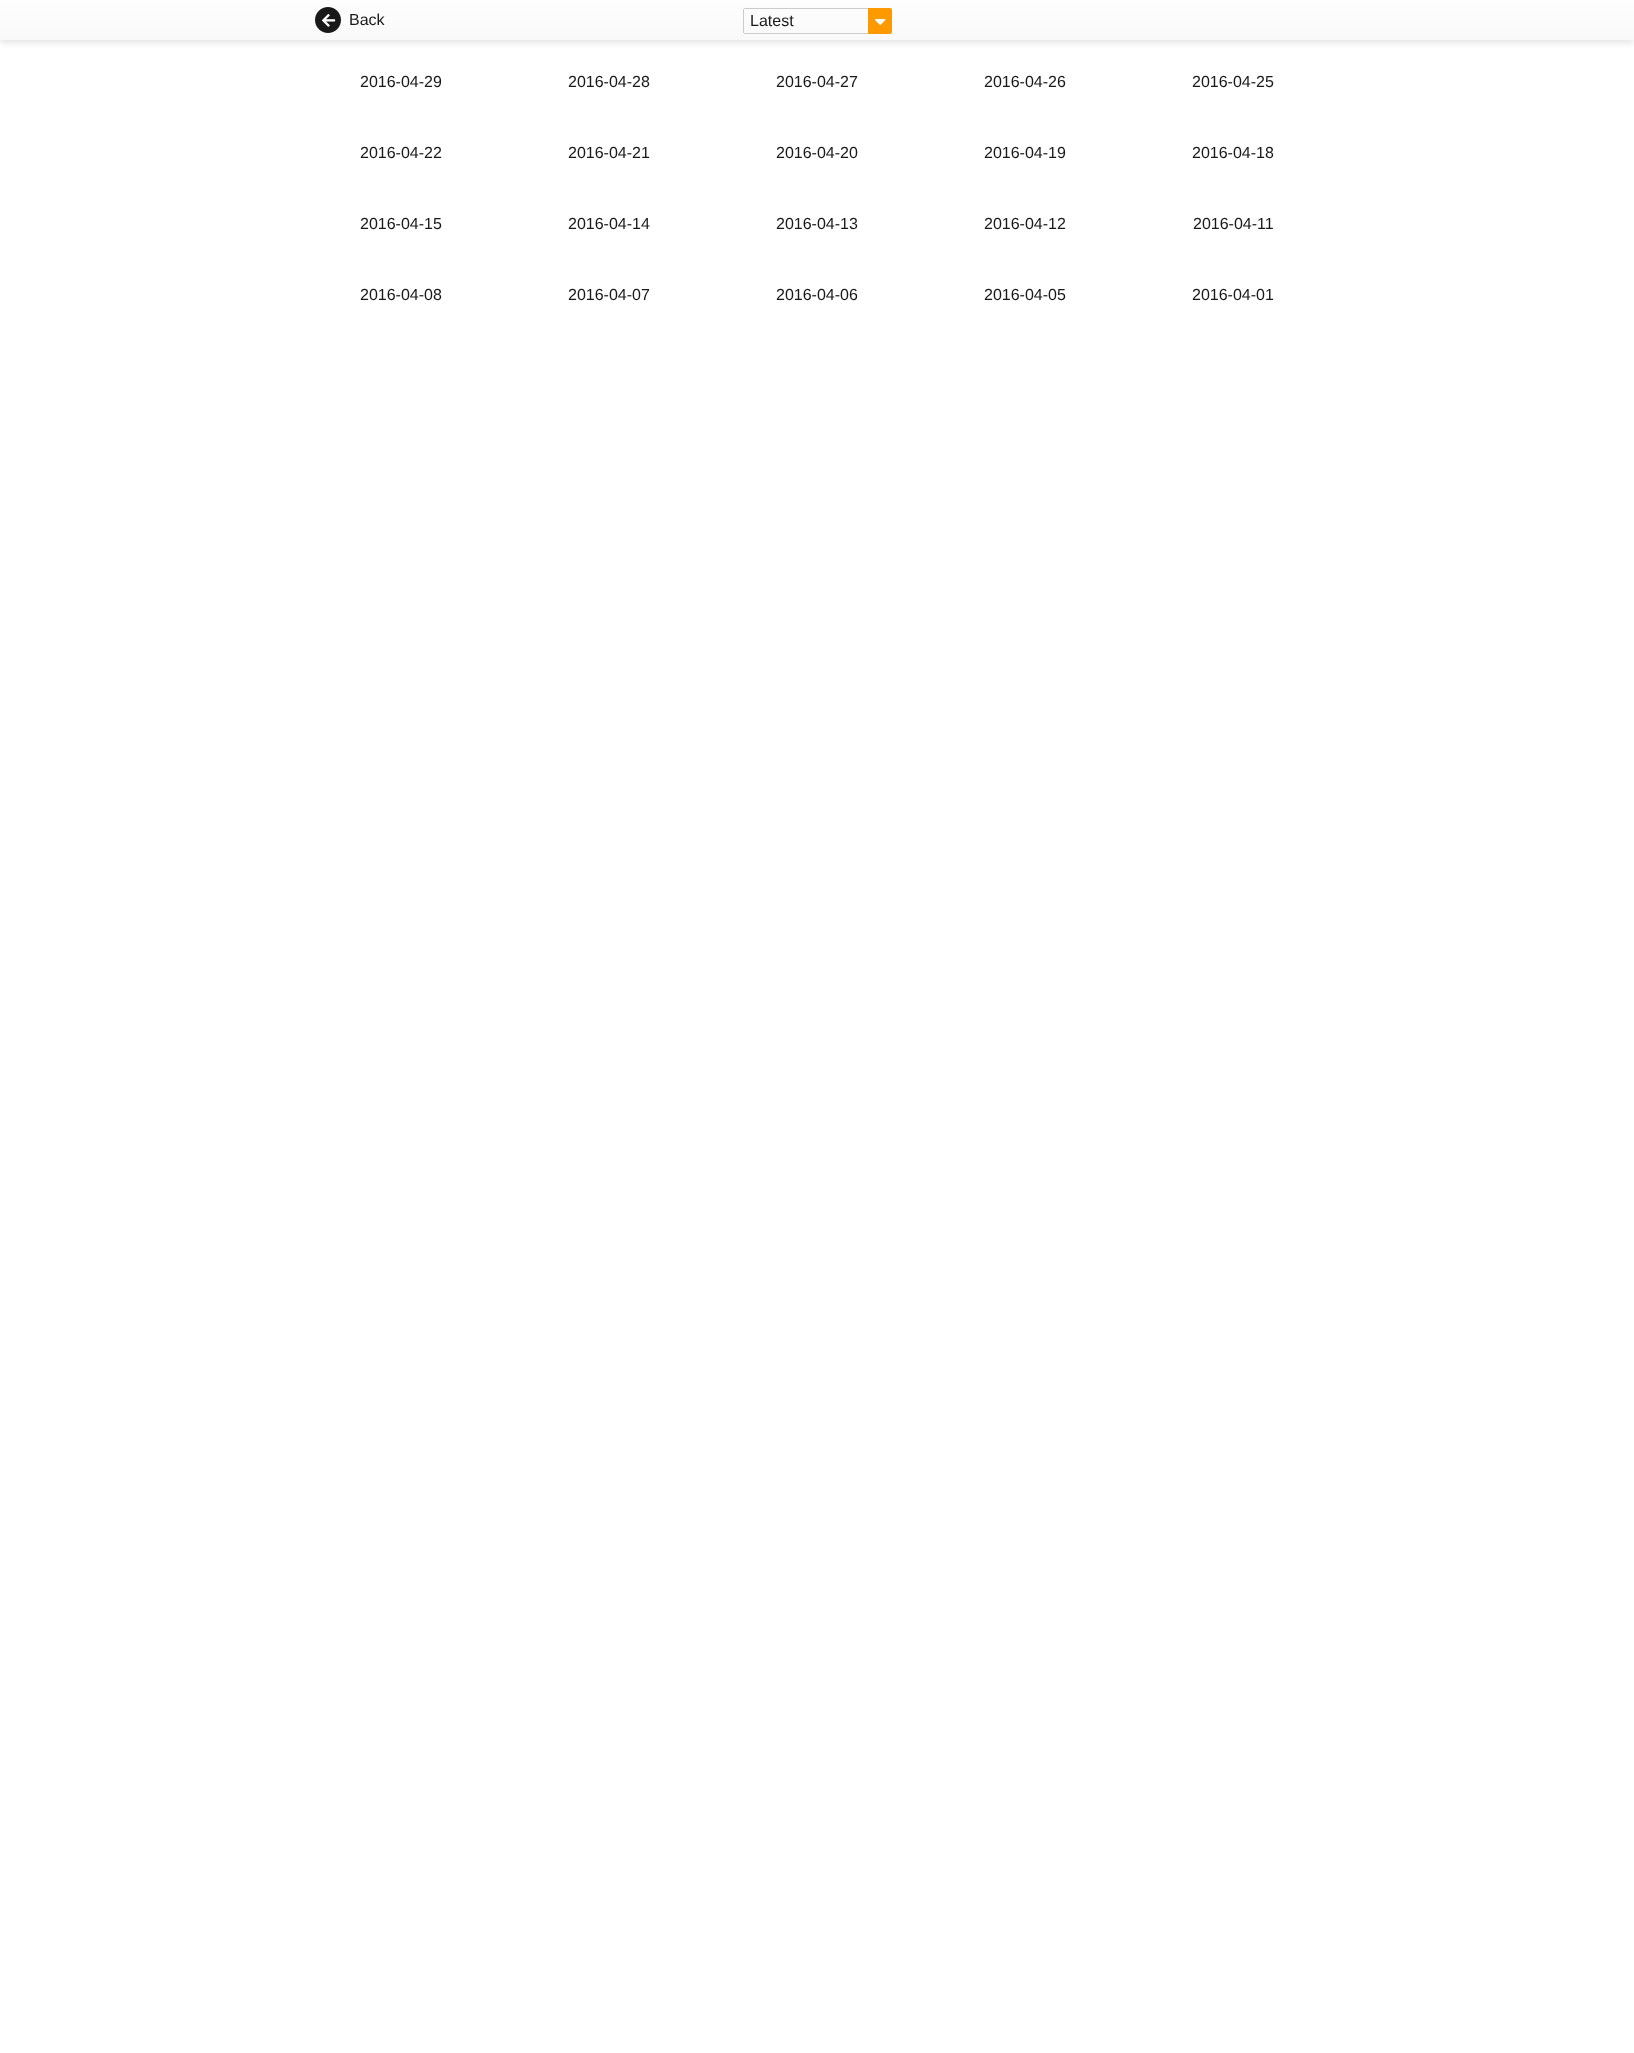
(async () => {
const canvas = document.querySelector("canvas")
canvas.width = 1634
canvas.height = 2053
const c = canvas.getContext("2d")
c.miterLimit = 4
c.fontKerning = "normal"
function T(s,x,y){c.fillText(s,x,y)}
function R(x,y,w,h){c.fillRect(x,y,w,h)}
async function I(src,x,y,w,h){const img=new Image();img.src=src;await img.decode();c.drawImage(img,x,y,w,h)}
let gradient
c.fillStyle="#fff"
R(0,0,1634,2053)
c.fillStyle="#0000001a"
c.filter="blur(3px)"
c.beginPath()
c.rect(0,3,1634,40)
c.fill()
c.filter="none"
gradient = c.createLinearGradient(817,0,817,40)
gradient.addColorStop(0,"#fefefe")
gradient.addColorStop(1,"#f9f9f9")
c.fillStyle = gradient
R(0,0,1634,40)
await I("1.png",315,7,26,26)
c.font="16px Liberation Sans"
c.fillStyle="#191919"
T("Back",349,25)
c.fillStyle="#ccc"
R(744,8,124,1)
R(744,33,124,1)
R(743,9,1,24)
c.fillStyle="#191919"
T("Latest",750,26)
await I("2.png",868,8,24,26)
T("2016-04-29",360,87)
T("2016-04-28",568,87)
T("2016-04-27",776,87)
T("2016-04-26",984,87)
T("2016-04-25",1192,87)
T("2016-04-22",360,158)
T("2016-04-21",568,158)
T("2016-04-20",776,158)
T("2016-04-19",984,158)
T("2016-04-18",1192,158)
T("2016-04-15",360,229)
T("2016-04-14",568,229)
T("2016-04-13",776,229)
T("2016-04-12",984,229)
T("2016-04-11",1193,229)
T("2016-04-08",360,300)
T("2016-04-07",568,300)
T("2016-04-06",776,300)
T("2016-04-05",984,300)
T("2016-04-01",1192,300)
})()
